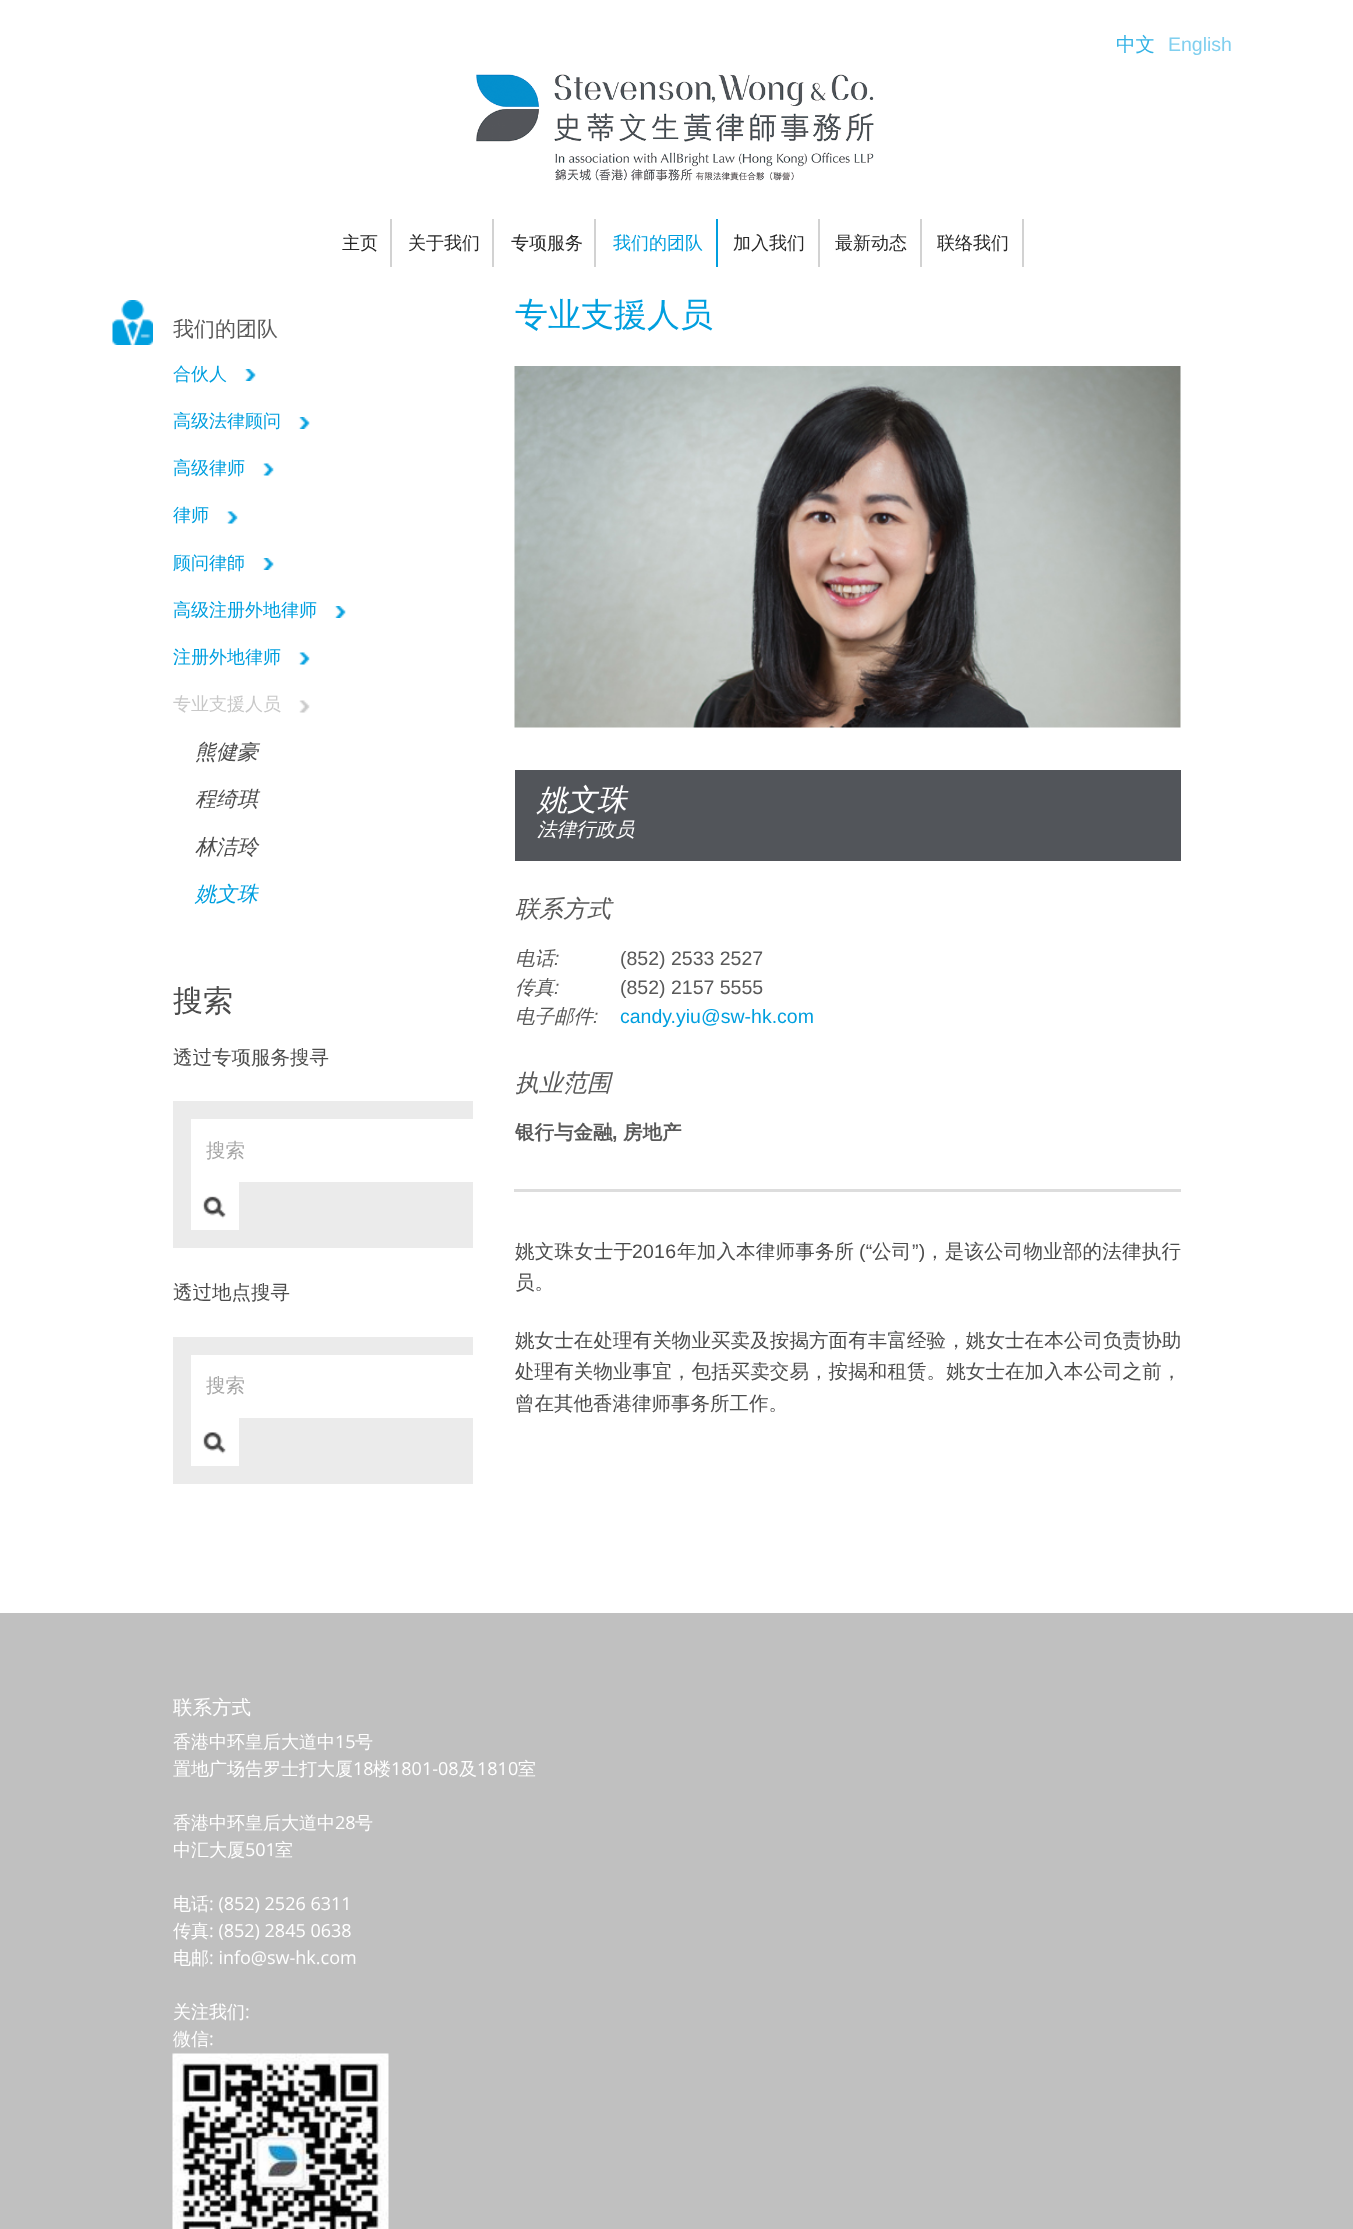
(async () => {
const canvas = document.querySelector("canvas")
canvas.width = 1353
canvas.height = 2229
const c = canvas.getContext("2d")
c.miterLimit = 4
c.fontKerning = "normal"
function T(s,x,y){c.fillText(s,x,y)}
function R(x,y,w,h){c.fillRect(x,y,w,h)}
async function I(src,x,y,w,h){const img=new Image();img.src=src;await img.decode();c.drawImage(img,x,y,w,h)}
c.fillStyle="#fff"
R(0,0,1353,2229)
c.font="500 19.5px WenQuanYi Zen Hei"
c.fillStyle="#33b2e5"
T("中文",1116,51)
c.font="19.5px Liberation Sans"
c.fillStyle="#80cfef"
T("English",1168,51)
await I("1.png",476,74,398,107)
c.fillStyle="#d2d2d2"
R(390,219,2,48)
c.font="500 18px WenQuanYi Zen Hei"
c.fillStyle="#262626"
T("主页",342,249)
c.fillStyle="#d2d2d2"
R(492,219,2,48)
c.fillStyle="#262626"
T("关于我们",408,249)
c.fillStyle="#d2d2d2"
R(594,219,2,48)
c.fillStyle="#262626"
T("专项服务",511,249)
c.fillStyle="#009fdf"
R(716,219,2,48)
T("我们的团队",613,249)
c.fillStyle="#d2d2d2"
R(818,219,2,48)
c.fillStyle="#262626"
T("加入我们",733,249)
c.fillStyle="#d2d2d2"
R(920,219,2,48)
c.fillStyle="#262626"
T("最新动态",835,249)
c.fillStyle="#d2d2d2"
R(1022,219,2,48)
c.fillStyle="#262626"
T("联络我们",937,249)
await I("2.png",112,300,41,45)
c.font="500 21px WenQuanYi Zen Hei"
c.fillStyle="#595959"
T("我们的团队",173,336)
c.font="500 18px WenQuanYi Zen Hei"
c.fillStyle="#009fdf"
T("合伙人",173,380)
await I("3.png",244,369,12,12)
T("高级法律顾问",173,427)
await I("4.png",298,417,12,12)
T("高级律师",173,474)
await I("5.png",262,463,12,13)
T("律师",173,521)
await I("6.png",226,511,12,13)
T("顾问律師",173,569)
await I("7.png",262,558,12,12)
T("高级注册外地律师",173,616)
await I("3.png",334,606,12,12)
T("注册外地律师",173,663)
await I("8.png",298,652,12,13)
c.fillStyle="#c8c8c8"
T("专业支援人员",173,710)
await I("9.png",299,700,11,13)
c.font="italic 500 21px WenQuanYi Zen Hei"
c.fillStyle="#4c4c4c"
T("熊健豪",195,759)
T("程绮琪",195,806)
T("林洁玲",195,854)
c.fillStyle="#009fdf"
T("姚文珠",195,901)
c.font="500 30px WenQuanYi Zen Hei"
c.fillStyle="#4c4c4c"
T("搜索",173,1011)
c.font="500 19.5px WenQuanYi Zen Hei"
T("透过专项服务搜寻",173,1064)
c.fillStyle="#ebebeb"
R(173,1101,300,147)
c.fillStyle="#fff"
R(191,1119,282,63)
c.fillStyle="#a6a6a6"
T("搜索",206,1157)
c.fillStyle="#fff"
R(191,1182,48,48)
await I("10.png",202,1196,24,23)
c.fillStyle="#4c4c4c"
T("透过地点搜寻",173,1299)
c.fillStyle="#ebebeb"
R(173,1337,300,147)
c.fillStyle="#fff"
R(191,1355,282,63)
c.fillStyle="#a6a6a6"
T("搜索",206,1392)
c.fillStyle="#fff"
R(191,1418,48,48)
await I("11.png",202,1432,24,22)
c.font="500 33px WenQuanYi Zen Hei"
c.fillStyle="#009fdf"
T("专业支援人员",515,326)
await I("12.png",514,366,667,362)
c.fillStyle="#52555a"
R(515,770,666,91)
c.font="italic 500 30px WenQuanYi Zen Hei"
c.fillStyle="#fff"
T("姚文珠",537,810)
c.font="italic 500 19.5px WenQuanYi Zen Hei"
T("法律行政员",537,836)
c.font="italic 500 24px WenQuanYi Zen Hei"
c.fillStyle="#595959"
T("联系方式",515,917)
c.font="italic 500 19.5px WenQuanYi Zen Hei"
T("电话",515,965)
c.font="italic 19.5px Liberation Sans"
T(":",554,965)
c.font="19.5px Liberation Sans"
T("(852) 2533 2527",620,965)
c.font="italic 500 19.5px WenQuanYi Zen Hei"
T("传真",515,994)
c.font="italic 19.5px Liberation Sans"
T(":",554,994)
c.font="19.5px Liberation Sans"
T("(852) 2157 5555",620,994)
c.font="italic 500 19.5px WenQuanYi Zen Hei"
T("电子邮件",515,1023)
c.font="italic 19.5px Liberation Sans"
T(":",593,1023)
c.font="19.5px Liberation Sans"
c.fillStyle="#009fdf"
T("candy.yiu@sw-hk.com",620,1023)
c.font="italic 500 24px WenQuanYi Zen Hei"
c.fillStyle="#595959"
T("执业范围",515,1091)
c.font="bold 19.5px WenQuanYi Zen Hei"
T("银行与金融",515,1139)
c.font="bold 19.5px Liberation Sans"
T(",",612,1139)
c.font="bold 19.5px WenQuanYi Zen Hei"
T("房地产",623,1139)
c.fillStyle="#ddd"
R(514,1189,667,3)
c.letterSpacing="0.2px"
c.font="500 19.5px WenQuanYi Zen Hei"
c.fillStyle="#4c4c4c"
T("姚文珠女士于",515,1258)
c.font="19.5px Liberation Sans"
T("2016",632,1258)
c.font="500 19.5px WenQuanYi Zen Hei"
T("年加入本律师事务所",677,1258)
c.font="19.5px Liberation Sans"
T("(“",859,1258)
c.font="500 19.5px WenQuanYi Zen Hei"
T("公司",872,1258)
c.font="19.5px Liberation Sans"
T("”)",912,1258)
c.font="500 19.5px WenQuanYi Zen Hei"
T("，是该公司物业部的法律执行",925,1258)
c.letterSpacing="0px"
T("员。",515,1289)
c.letterSpacing="0.1px"
T("姚女士在处理有关物业买卖及按揭方面有丰富经验，姚女士在本公司负责协助",515,1347)
T("处理有关物业事宜，包括买卖交易，按揭和租赁。姚女士在加入本公司之前，",515,1378)
c.letterSpacing="0px"
T("曾在其他香港律师事务所工作。",515,1410)
c.fillStyle="#c0c0c0"
R(0,1613,1353,616)
c.fillStyle="#fff"
T("联系方式",173,1714)
c.font="500 18px WenQuanYi Zen Hei"
T("香港中环皇后大道中",173,1748)
c.font="18px Open Sans"
T("15",335,1748)
c.font="500 18px WenQuanYi Zen Hei"
T("号",355,1748)
T("置地广场告罗士打大厦",173,1775)
c.font="18px Open Sans"
T("18",353,1775)
c.font="500 18px WenQuanYi Zen Hei"
T("楼",373,1775)
c.font="18px Open Sans"
T("1801-08",391,1775)
c.font="500 18px WenQuanYi Zen Hei"
T("及",459,1775)
c.font="18px Open Sans"
T("1810",477,1775)
c.font="500 18px WenQuanYi Zen Hei"
T("室",518,1775)
T("香港中环皇后大道中",173,1829)
c.font="18px Open Sans"
T("28",335,1829)
c.font="500 18px WenQuanYi Zen Hei"
T("号",355,1829)
T("中汇大厦",173,1856)
c.font="18px Open Sans"
T("501",245,1856)
c.font="500 18px WenQuanYi Zen Hei"
T("室",275,1856)
T("电话",173,1910)
c.font="18px Open Sans"
T(": (852) 2526 6311",209,1910)
c.font="500 18px WenQuanYi Zen Hei"
T("传真",173,1937)
c.font="18px Open Sans"
T(": (852) 2845 0638",209,1937)
c.font="500 18px WenQuanYi Zen Hei"
T("电邮",173,1964)
c.font="18px Open Sans"
T(": info@sw-hk.com",209,1964)
c.font="500 18px WenQuanYi Zen Hei"
T("关注我们",173,2018)
c.font="18px Open Sans"
T(":",245,2018)
c.font="500 18px WenQuanYi Zen Hei"
T("微信",173,2045)
c.font="18px Open Sans"
T(":",209,2045)
await I("13.png",172,2053,217,176)
})()
